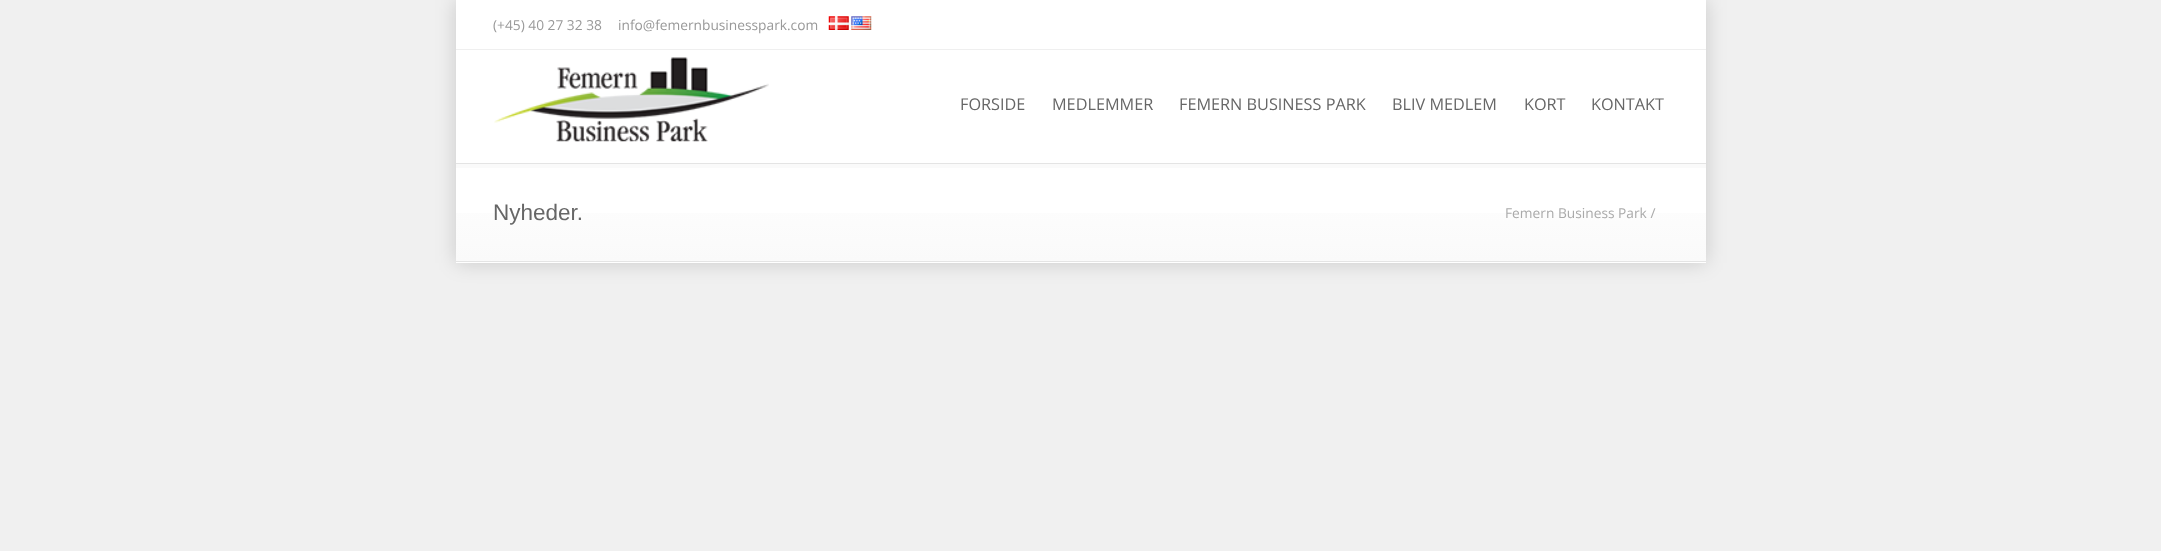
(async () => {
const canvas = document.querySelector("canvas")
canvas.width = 2161
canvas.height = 551
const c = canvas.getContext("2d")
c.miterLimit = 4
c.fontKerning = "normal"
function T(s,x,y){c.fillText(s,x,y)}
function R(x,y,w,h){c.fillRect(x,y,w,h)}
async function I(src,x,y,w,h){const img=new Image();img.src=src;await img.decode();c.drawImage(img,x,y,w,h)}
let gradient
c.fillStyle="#f0f0f0"
R(0,0,2161,551)
c.fillStyle="#00000029"
c.filter="blur(10px)"
c.beginPath()
c.rect(456,0,1250,263)
c.fill()
c.filter="none"
c.fillStyle="#fff"
R(456,0,1250,263)
c.fillStyle="#efefef"
R(456,49,1250,1)
c.font="13.75px Open Sans"
c.fillStyle="#999"
T("(+45) 40 27 32 38",493,30)
T("info@femernbusinesspark.com",618,30)
await I("1.png",828,16,21,14)
await I("2.png",851,16,21,14)
await I("3.png",494,57,275,85)
c.font="16.25px Open Sans"
c.fillStyle="#666"
T("FORSIDE",960,110)
T("MEDLEMMER",1052,110)
T("FEMERN BUSINESS PARK",1179,110)
T("BLIV MEDLEM",1392,110)
T("KORT",1524,110)
T("KONTAKT",1591,110)
gradient = c.createLinearGradient(1081,261,1081,164)
gradient.addColorStop(0,"#fafafa")
gradient.addColorStop(1,"#fff")
c.fillStyle = gradient
R(456,213,1250,48)
c.fillStyle="#fafafa"
R(456,164,1250,4)
c.fillStyle="#e4e4e4"
R(456,163,1250,1)
R(456,261,1250,1)
c.font="22.5px Liberation Sans"
c.fillStyle="#666"
T("Nyheder.",493,220)
c.font="13.75px Open Sans"
c.fillStyle="#aaa"
T("Femern Business Park /",1505,218)
})()
